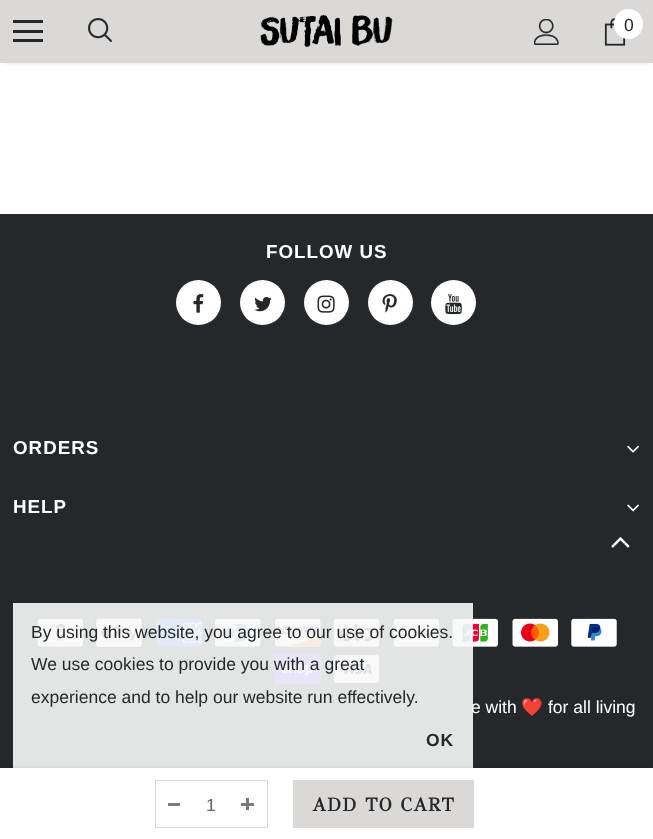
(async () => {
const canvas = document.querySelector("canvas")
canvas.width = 653
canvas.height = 839
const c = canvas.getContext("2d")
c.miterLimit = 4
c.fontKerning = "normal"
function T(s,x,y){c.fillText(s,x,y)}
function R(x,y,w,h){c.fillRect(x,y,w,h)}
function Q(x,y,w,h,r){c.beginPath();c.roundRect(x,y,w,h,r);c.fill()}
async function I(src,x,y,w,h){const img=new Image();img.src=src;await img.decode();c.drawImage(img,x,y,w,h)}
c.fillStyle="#fff"
R(0,0,653,839)
c.fillStyle="#0000001f"
c.filter="blur(2px)"
c.beginPath()
c.rect(4,8,646,55)
c.fill()
c.filter="none"
c.fillStyle="#dad9d7"
R(0,0,653,63)
c.fillStyle="#25282a"
R(13,20,30,3)
R(13,30,30,3)
R(13,39,30,3)
await I("1.png",88,18,24,24)
await I("2.png",260,14,133,33)
await I("3.png",534,19,25,26)
await I("4.png",604,18,22,28)
c.fillStyle="#fff"
Q(614,9,29,30,14.5)
c.font="17.5px Liberation Sans"
c.fillStyle="#25282a"
T("0",624,31)
R(0,214,653,554)
c.letterSpacing="1px"
c.font="bold 18.75px Liberation Sans"
c.fillStyle="#fff"
T("FOLLOW US",266,258)
c.beginPath()
c.arc(198.5,302.5,22.5,0,7)
c.fill()
await I("5.png",193,294,11,19)
c.beginPath()
c.arc(262.5,302.5,22.5,0,7)
c.fill()
await I("6.png",254,297,18,15)
c.beginPath()
c.arc(326.5,302.5,22.5,0,7)
c.fill()
await I("7.png",317,295,18,18)
c.beginPath()
c.arc(390.5,302.5,22.5,0,7)
c.fill()
await I("8.png",382,294,15,19)
c.beginPath()
c.arc(453.5,302.5,22.5,0,7)
c.fill()
await I("9.png",445,294,17,21)
T("ORDERS",13,454)
await I("10.png",627,445,12,8)
T("HELP",13,513)
await I("11.png",627,504,12,8)
await I("12.png",37,618,46,29)
await I("13.png",95,618,48,30)
await I("14.png",156,618,46,29)
await I("15.png",215,618,46,29)
await I("16.png",275,618,46,29)
await I("17.png",333,618,47,29)
await I("18.png",393,618,47,29)
await I("19.png",452,618,46,29)
await I("20.png",512,618,46,29)
await I("21.png",571,618,46,29)
await I("22.png",274,654,47,30)
await I("23.png",333,655,47,28)
c.letterSpacing="0px"
c.font="17.5px Liberation Sans"
T("e with",471,713)
c.font="17.5px Noto Color Emoji"
T("❤️",521,713)
c.font="17.5px Liberation Sans"
T("for all living",548,713)
await I("24.png",611,537,19,11)
c.fillStyle="#f8f8f8e6"
R(13,603,460,165)
c.fillStyle="#25282a"
T("By using this website, you agree to our use of cookies.",31,638)
T("We use cookies to provide you with a great",31,670)
T("experience and to help our website run effectively.",31,703)
c.letterSpacing="1px"
c.font="bold 17.5px Liberation Sans"
T("OK",426,746)
c.fillStyle="#0000001a"
c.filter="blur(2px)"
c.beginPath()
c.rect(4,768,646,65)
c.fill()
c.filter="none"
c.fillStyle="#fff"
R(1,768,652,68)
c.strokeStyle="#dadada"
c.strokeRect(155.5,780.5,112,47)
c.fillStyle="#7b7b7b"
R(168,803,12,3)
c.letterSpacing="0px"
c.font="17.5px Liberation Sans"
c.fillStyle="#646464"
T("1",206,811)
c.fillStyle="#7b7b7b"
R(241,803,13,3)
R(246,798,3,12)
c.fillStyle="#dad9d7"
R(293,780,181,48)
c.letterSpacing="1px"
c.font="bold 18.75px GFS Didot"
c.fillStyle="#25282a"
T("ADD TO CART",312,811)
})()
